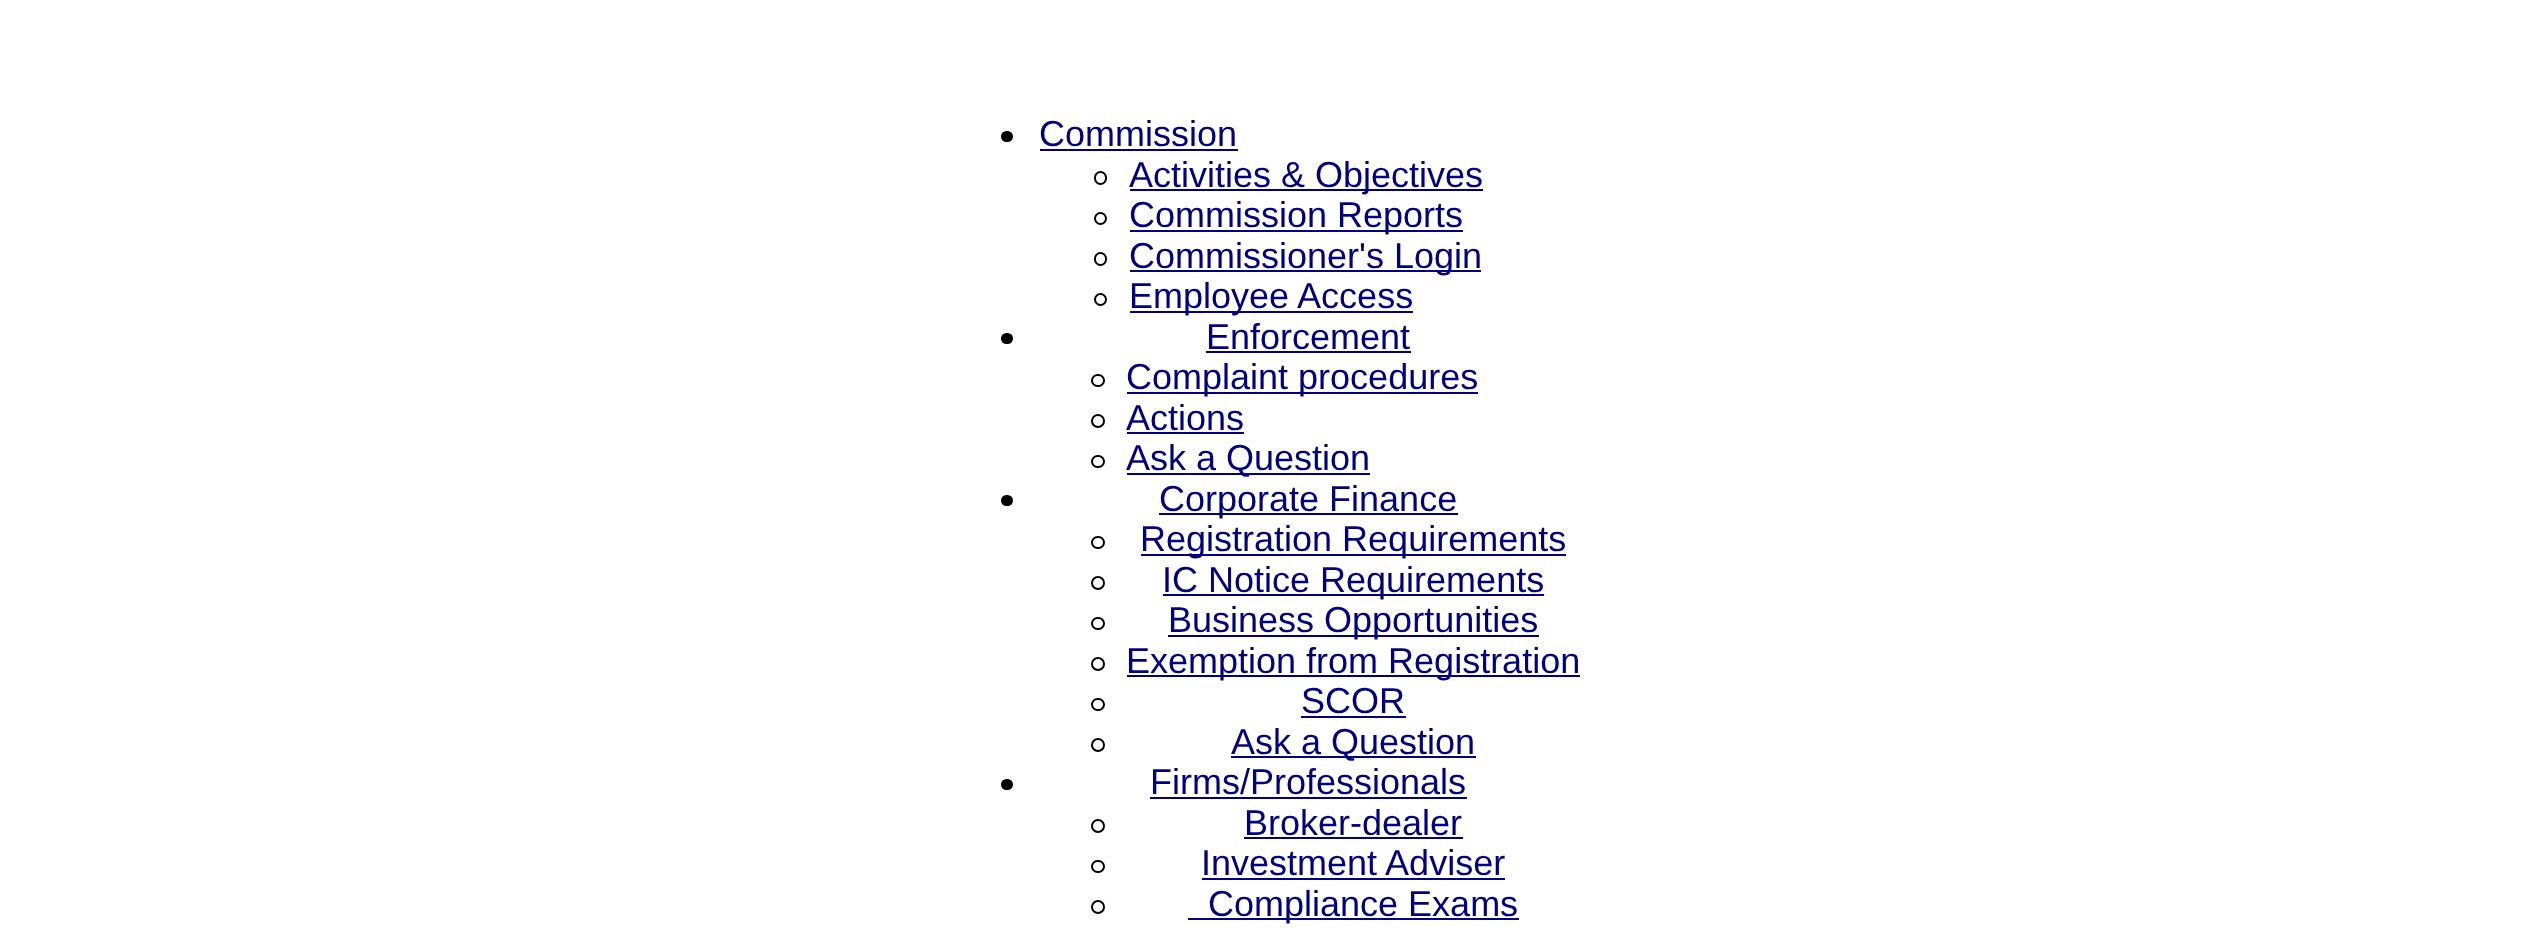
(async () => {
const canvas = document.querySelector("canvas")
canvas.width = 2525
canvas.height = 934
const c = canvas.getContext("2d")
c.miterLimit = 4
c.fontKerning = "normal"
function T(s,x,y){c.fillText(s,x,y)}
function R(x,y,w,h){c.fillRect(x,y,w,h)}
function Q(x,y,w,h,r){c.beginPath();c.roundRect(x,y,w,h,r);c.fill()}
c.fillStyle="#fff"
R(0,0,2525,934)
c.fillStyle="#000"
Q(1001,131,12,11,5.5)
c.font="36px Liberation Sans"
c.fillStyle="#000080"
T("Commission",1039,146)
R(1040,149,198,2)
c.beginPath()
c.roundRect(1095,172,11,12,5.5)
c.strokeStyle="#000"
c.lineWidth=2
c.stroke()
R(1130,189,353,2)
T("Activities & Objectives",1129,187)
c.beginPath()
c.arc(1100.5,218.5,5.5,0,7)
c.stroke()
R(1130,230,333,2)
T("Commission Reports",1129,227)
c.beginPath()
c.roundRect(1095,253,11,12,5.5)
c.stroke()
R(1130,270,351,2)
T("Commissioner's Login",1129,268)
c.beginPath()
c.arc(1100.5,299.5,5.5,0,7)
c.stroke()
R(1130,311,283,2)
T("Employee Access",1129,308)
c.fillStyle="#000"
Q(1001,333,12,11,5.5)
c.fillStyle="#000080"
T("Enforcement",1206,349)
R(1206,351,205,2)
c.beginPath()
c.roundRect(1092,375,12,11,5.5)
c.stroke()
R(1127,392,351,2)
T("Complaint procedures",1126,389)
c.beginPath()
c.arc(1098,421,6,0,7)
c.stroke()
T("Actions",1126,430)
R(1127,432,117,2)
c.beginPath()
c.roundRect(1092,456,12,11,5.5)
c.stroke()
R(1127,473,243,2)
T("Ask a Question",1126,470)
c.fillStyle="#000"
Q(1001,495,12,11,5.5)
c.fillStyle="#000080"
R(1159,513,299,2)
T("Corporate Finance",1159,511)
c.beginPath()
c.roundRect(1092,537,12,11,5.5)
c.stroke()
R(1141,554,425,2)
T("Registration Requirements",1140,551)
c.beginPath()
c.arc(1098,583,6,0,7)
c.stroke()
R(1163,594,381,2)
T("IC Notice Requirements",1162,592)
c.beginPath()
c.roundRect(1092,618,12,11,5.5)
c.stroke()
R(1168,635,371,2)
T("Business Opportunities",1168,632)
c.beginPath()
c.arc(1098,664,6,0,7)
c.stroke()
R(1127,675,453,2)
T("Exemption from Registration",1126,673)
c.beginPath()
c.roundRect(1092,699,12,11,5.5)
c.stroke()
T("SCOR",1301,713)
R(1301,716,105,2)
c.beginPath()
c.arc(1098,745,6,0,7)
c.stroke()
R(1231,756,245,2)
T("Ask a Question",1231,754)
c.fillStyle="#000"
Q(1001,779,12,11,5.5)
c.fillStyle="#000080"
T("Firms/Professionals",1150,794)
R(1150,797,317,2)
c.beginPath()
c.arc(1098,826,6,0,7)
c.stroke()
T("Broker-dealer",1244,835)
R(1244,837,219,2)
c.beginPath()
c.roundRect(1092,861,12,11,5.5)
c.stroke()
T("Investment Adviser",1201,875)
R(1202,878,303,2)
c.beginPath()
c.arc(1098,907,6,0,7)
c.stroke()
R(1188,918,331,2)
T("Compliance Exams",1208,916)
})()
